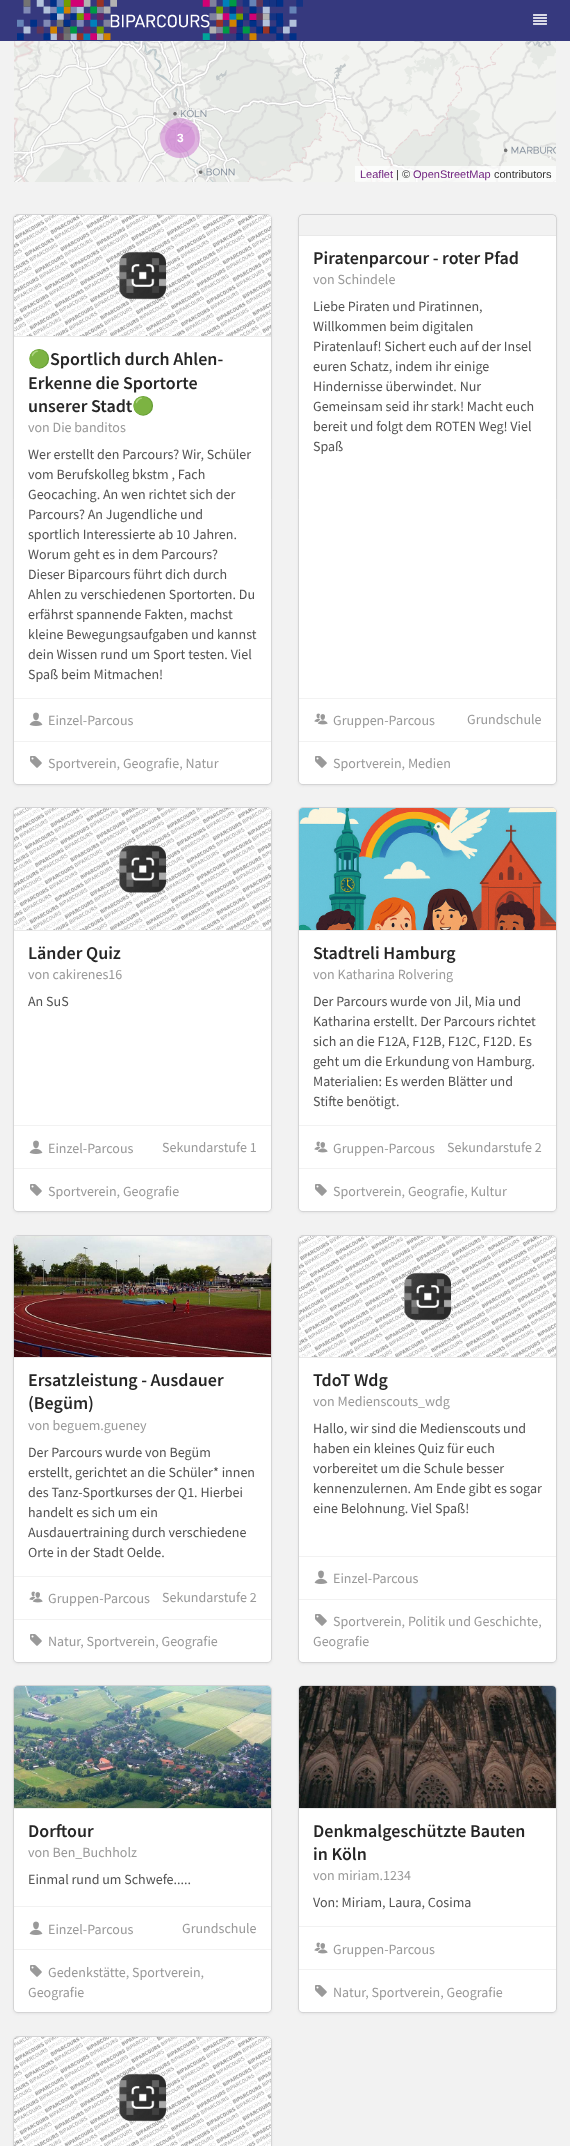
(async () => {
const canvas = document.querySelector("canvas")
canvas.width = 570
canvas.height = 2146
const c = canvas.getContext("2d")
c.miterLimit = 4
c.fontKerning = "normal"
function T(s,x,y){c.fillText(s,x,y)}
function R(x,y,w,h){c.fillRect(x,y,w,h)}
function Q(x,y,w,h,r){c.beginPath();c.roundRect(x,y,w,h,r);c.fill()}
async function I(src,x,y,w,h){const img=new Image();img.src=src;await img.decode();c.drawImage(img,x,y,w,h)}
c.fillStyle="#f2f2f2"
R(0,0,570,2146)
c.fillStyle="#36397e"
R(0,0,570,41)
await I("1.png",17,0,286,40)
await I("2.png",533,14,14,11)
await I("3.png",14,41,174,131)
await I("4.png",188,41,256,131)
await I("5.png",444,41,112,131)
await I("6.png",14,172,174,10)
await I("7.png",188,172,256,10)
await I("8.png",444,172,112,10)
c.fillStyle="#d088d399"
c.beginPath()
c.arc(180,138,20,0,7)
c.fill()
c.beginPath()
c.arc(180,138,15,0,7)
c.fill()
c.font="bold 12px Liberation Sans"
c.fillStyle="#fff"
T("3",177,142)
c.fillStyle="#ffffffb3"
R(355,166,201,16)
c.font="11px Liberation Sans"
c.fillStyle="#6d1d7c"
T("Leaflet",360,178)
c.fillStyle="#333"
T("| ©",396,178)
c.fillStyle="#6d1d7c"
T("OpenStreetMap",413,178)
c.fillStyle="#333"
T("contributors",494,178)
c.beginPath()
c.roundRect(13.5,214.5,258,570,4.5)
c.strokeStyle="#d4d4d5"
c.stroke()
c.fillStyle="#d4d4d5"
c.filter="blur(1.5px)"
c.beginPath()
c.roundRect(14,216,257,569,4)
c.fill()
c.filter="none"
c.fillStyle="#fff"
Q(14,215,257,569,4)
await I("9.png",14,215,257,121)
c.fillStyle="#e9e9e9"
R(14,336,257,1)
c.font="bold 18px Noto Color Emoji"
c.fillStyle="#262626"
T("🟢",28,365)
c.font="600 18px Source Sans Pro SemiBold"
T("Sportlich durch Ahlen-",50,365)
T("Erkenne die Sportorte",28,389)
T("unserer Stadt",28,412)
c.font="bold 18px Noto Color Emoji"
T("🟢",132,412)
c.font="14px Source Sans Pro"
c.fillStyle="#999"
T("von Die banditos",28,432)
c.fillStyle="#525252"
T("Wer erstellt den Parcours? Wir, Schüler",28,459)
T("vom Berufskolleg bkstm , Fach",28,479)
T("Geocaching. An wen richtet sich der",28,499)
T("Parcours? An Jugendliche und",28,519)
T("sportlich Interessierte ab 10 Jahren.",28,539)
T("Worum geht es in dem Parcours?",28,559)
T("Dieser Biparcours führt dich durch",28,579)
T("Ahlen zu verschiedenen Sportorten. Du",28,599)
T("erfährst spannende Fakten, machst",28,619)
T("kleine Bewegungsaufgaben und kannst",28,639)
T("dein Wissen rund um Sport testen. Viel",28,659)
T("Spaß beim Mitmachen!",28,679)
c.fillStyle="#f2f2f2"
R(14,698,257,1)
await I("10.png",29,712,14,14)
c.fillStyle="#999"
T("Einzel-Parcous",48,725)
c.fillStyle="#f2f2f2"
R(14,741,257,1)
await I("11.png",30,756,12,12)
c.fillStyle="#999"
T("Sportverein, Geografie, Natur",48,768)
c.beginPath()
c.roundRect(298.5,214.5,258,570,4.5)
c.stroke()
c.fillStyle="#d4d4d5"
c.filter="blur(1.5px)"
c.beginPath()
c.roundRect(299,216,257,569,4)
c.fill()
c.filter="none"
c.fillStyle="#fff"
Q(299,215,257,569,4)
c.fillStyle="#0000000d"
R(299,215,257,20)
c.fillStyle="#e9e9e9"
R(299,235,257,1)
c.font="600 18px Source Sans Pro SemiBold"
c.fillStyle="#262626"
T("Piratenparcour - roter Pfad",313,264)
c.font="14px Source Sans Pro"
c.fillStyle="#999"
T("von Schindele",313,284)
c.fillStyle="#525252"
T("Liebe Piraten und Piratinnen,",313,311)
T("Willkommen beim digitalen",313,331)
T("Piratenlauf! Sichert euch auf der Insel",313,351)
T("euren Schatz, indem ihr einige",313,371)
T("Hindernisse überwindet. Nur",313,391)
T("Gemeinsam seid ihr stark! Macht euch",313,411)
T("bereit und folgt dem ROTEN Weg! Viel",313,431)
T("Spaß",313,451)
c.fillStyle="#f2f2f2"
R(299,698,257,1)
await I("12.png",314,713,14,12)
c.fillStyle="#999"
T("Gruppen-Parcous",333,725)
T("Grundschule",467,724)
c.fillStyle="#f2f2f2"
R(299,741,257,1)
await I("11.png",315,756,12,12)
c.fillStyle="#999"
T("Sportverein, Medien",333,768)
c.beginPath()
c.roundRect(13.5,807.5,258,404,4.5)
c.stroke()
c.fillStyle="#d4d4d5"
c.filter="blur(1.5px)"
c.beginPath()
c.roundRect(14,809,257,403,4)
c.fill()
c.filter="none"
c.fillStyle="#fff"
Q(14,808,257,403,4)
await I("13.png",14,808,257,122)
c.fillStyle="#e9e9e9"
R(14,930,257,1)
c.font="600 18px Source Sans Pro SemiBold"
c.fillStyle="#262626"
T("Länder Quiz",28,959)
c.font="14px Source Sans Pro"
c.fillStyle="#999"
T("von cakirenes16",28,979)
c.fillStyle="#525252"
T("An SuS",28,1006)
c.fillStyle="#f2f2f2"
R(14,1125,257,1)
await I("10.png",29,1140,14,14)
c.fillStyle="#999"
T("Einzel-Parcous",48,1153)
T("Sekundarstufe 1",162,1152)
c.fillStyle="#f2f2f2"
R(14,1168,257,1)
await I("11.png",30,1184,12,12)
c.fillStyle="#999"
T("Sportverein, Geografie",48,1196)
c.beginPath()
c.roundRect(298.5,807.5,258,404,4.5)
c.stroke()
c.fillStyle="#d4d4d5"
c.filter="blur(1.5px)"
c.beginPath()
c.roundRect(299,809,257,403,4)
c.fill()
c.filter="none"
c.fillStyle="#fff"
Q(299,808,257,403,4)
await I("14.png",299,808,257,122)
c.fillStyle="#e9e9e9"
R(299,930,257,1)
c.font="600 18px Source Sans Pro SemiBold"
c.fillStyle="#262626"
T("Stadtreli Hamburg",313,959)
c.font="14px Source Sans Pro"
c.fillStyle="#999"
T("von Katharina Rolvering",313,979)
c.fillStyle="#525252"
T("Der Parcours wurde von Jil, Mia und",313,1006)
T("Katharina erstellt. Der Parcours richtet",313,1026)
T("sich an die F12A, F12B, F12C, F12D. Es",313,1046)
T("geht um die Erkundung von Hamburg.",313,1066)
T("Materialien: Es werden Blätter und",313,1086)
T("Stifte benötigt.",313,1106)
c.fillStyle="#f2f2f2"
R(299,1125,257,1)
await I("12.png",314,1141,14,12)
c.fillStyle="#999"
T("Gruppen-Parcous",333,1153)
T("Sekundarstufe 2",447,1152)
c.fillStyle="#f2f2f2"
R(299,1168,257,1)
await I("11.png",315,1184,12,12)
c.fillStyle="#999"
T("Sportverein, Geografie, Kultur",333,1196)
c.beginPath()
c.roundRect(13.5,1235.5,258,427,4.5)
c.stroke()
c.fillStyle="#d4d4d5"
c.filter="blur(1.5px)"
c.beginPath()
c.roundRect(14,1237,257,426,4)
c.fill()
c.filter="none"
c.fillStyle="#fff"
Q(14,1236,257,426,4)
await I("15.png",14,1236,257,121)
c.fillStyle="#e9e9e9"
R(14,1357,257,1)
c.font="600 18px Source Sans Pro SemiBold"
c.fillStyle="#262626"
T("Ersatzleistung - Ausdauer",28,1386)
T("(Begüm)",28,1409)
c.font="14px Source Sans Pro"
c.fillStyle="#999"
T("von beguem.gueney",28,1430)
c.fillStyle="#525252"
T("Der Parcours wurde von Begüm",28,1457)
T("erstellt, gerichtet an die Schüler* innen",28,1477)
T("des Tanz-Sportkurses der Q1. Hierbei",28,1497)
T("handelt es sich um ein",28,1517)
T("Ausdauertraining durch verschiedene",28,1537)
T("Orte in der Stadt Oelde.",28,1557)
c.fillStyle="#f2f2f2"
R(14,1576,257,1)
await I("12.png",29,1591,14,12)
c.fillStyle="#999"
T("Gruppen-Parcous",48,1603)
T("Sekundarstufe 2",162,1602)
c.fillStyle="#f2f2f2"
R(14,1619,257,1)
await I("11.png",30,1634,12,12)
c.fillStyle="#999"
T("Natur, Sportverein, Geografie",48,1646)
c.beginPath()
c.roundRect(298.5,1235.5,258,427,4.5)
c.stroke()
c.fillStyle="#d4d4d5"
c.filter="blur(1.5px)"
c.beginPath()
c.roundRect(299,1237,257,426,4)
c.fill()
c.filter="none"
c.fillStyle="#fff"
Q(299,1236,257,426,4)
await I("9.png",299,1236,257,121)
c.fillStyle="#e9e9e9"
R(299,1357,257,1)
c.font="600 18px Source Sans Pro SemiBold"
c.fillStyle="#262626"
T("TdoT Wdg",313,1386)
c.font="14px Source Sans Pro"
c.fillStyle="#999"
T("von Medienscouts_wdg",313,1406)
c.fillStyle="#525252"
T("Hallo, wir sind die Medienscouts und",313,1433)
T("haben ein kleines Quiz für euch",313,1453)
T("vorbereitet um die Schule besser",313,1473)
T("kennenzulernen. Am Ende gibt es sogar",313,1493)
T("eine Belohnung. Viel Spaß!",313,1513)
c.fillStyle="#f2f2f2"
R(299,1556,257,1)
await I("10.png",314,1570,14,14)
c.fillStyle="#999"
T("Einzel-Parcous",333,1583)
c.fillStyle="#f2f2f2"
R(299,1599,257,1)
await I("11.png",315,1614,12,12)
c.fillStyle="#999"
T("Sportverein, Politik und Geschichte,",333,1626)
T("Geografie",313,1646)
c.beginPath()
c.roundRect(13.5,1685.5,258,327,4.5)
c.stroke()
c.fillStyle="#d4d4d5"
c.filter="blur(1.5px)"
c.beginPath()
c.roundRect(14,1687,257,326,4)
c.fill()
c.filter="none"
c.fillStyle="#fff"
Q(14,1686,257,326,4)
await I("16.png",14,1686,257,122)
c.fillStyle="#e9e9e9"
R(14,1808,257,1)
c.font="600 18px Source Sans Pro SemiBold"
c.fillStyle="#262626"
T("Dorftour",28,1837)
c.font="14px Source Sans Pro"
c.fillStyle="#999"
T("von Ben_Buchholz",28,1857)
c.fillStyle="#525252"
T("Einmal rund um Schwefe.....",28,1884)
c.fillStyle="#f2f2f2"
R(14,1906,257,1)
await I("10.png",29,1921,14,14)
c.fillStyle="#999"
T("Einzel-Parcous",48,1934)
T("Grundschule",182,1933)
c.fillStyle="#f2f2f2"
R(14,1949,257,1)
await I("11.png",30,1965,12,12)
c.fillStyle="#999"
T("Gedenkstätte, Sportverein,",48,1977)
T("Geografie",28,1997)
c.beginPath()
c.roundRect(298.5,1685.5,258,327,4.5)
c.stroke()
c.fillStyle="#d4d4d5"
c.filter="blur(1.5px)"
c.beginPath()
c.roundRect(299,1687,257,326,4)
c.fill()
c.filter="none"
c.fillStyle="#fff"
Q(299,1686,257,326,4)
await I("17.png",299,1686,257,122)
c.fillStyle="#e9e9e9"
R(299,1808,257,1)
c.font="600 18px Source Sans Pro SemiBold"
c.fillStyle="#262626"
T("Denkmalgeschützte Bauten",313,1837)
T("in Köln",313,1860)
c.font="14px Source Sans Pro"
c.fillStyle="#999"
T("von miriam.1234",313,1880)
c.fillStyle="#525252"
T("Von: Miriam, Laura, Cosima",313,1907)
c.fillStyle="#f2f2f2"
R(299,1926,257,1)
await I("12.png",314,1942,14,12)
c.fillStyle="#999"
T("Gruppen-Parcous",333,1954)
c.fillStyle="#f2f2f2"
R(299,1969,257,1)
await I("11.png",315,1985,12,12)
c.fillStyle="#999"
T("Natur, Sportverein, Geografie",333,1997)
c.beginPath()
c.roundRect(13.5,2036.5,258,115,4.5)
c.stroke()
c.fillStyle="#d4d4d5"
c.filter="blur(1.5px)"
c.beginPath()
c.roundRect(14,2038,257,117,4)
c.fill()
c.filter="none"
await I("18.png",14,2037,257,109)
})()
